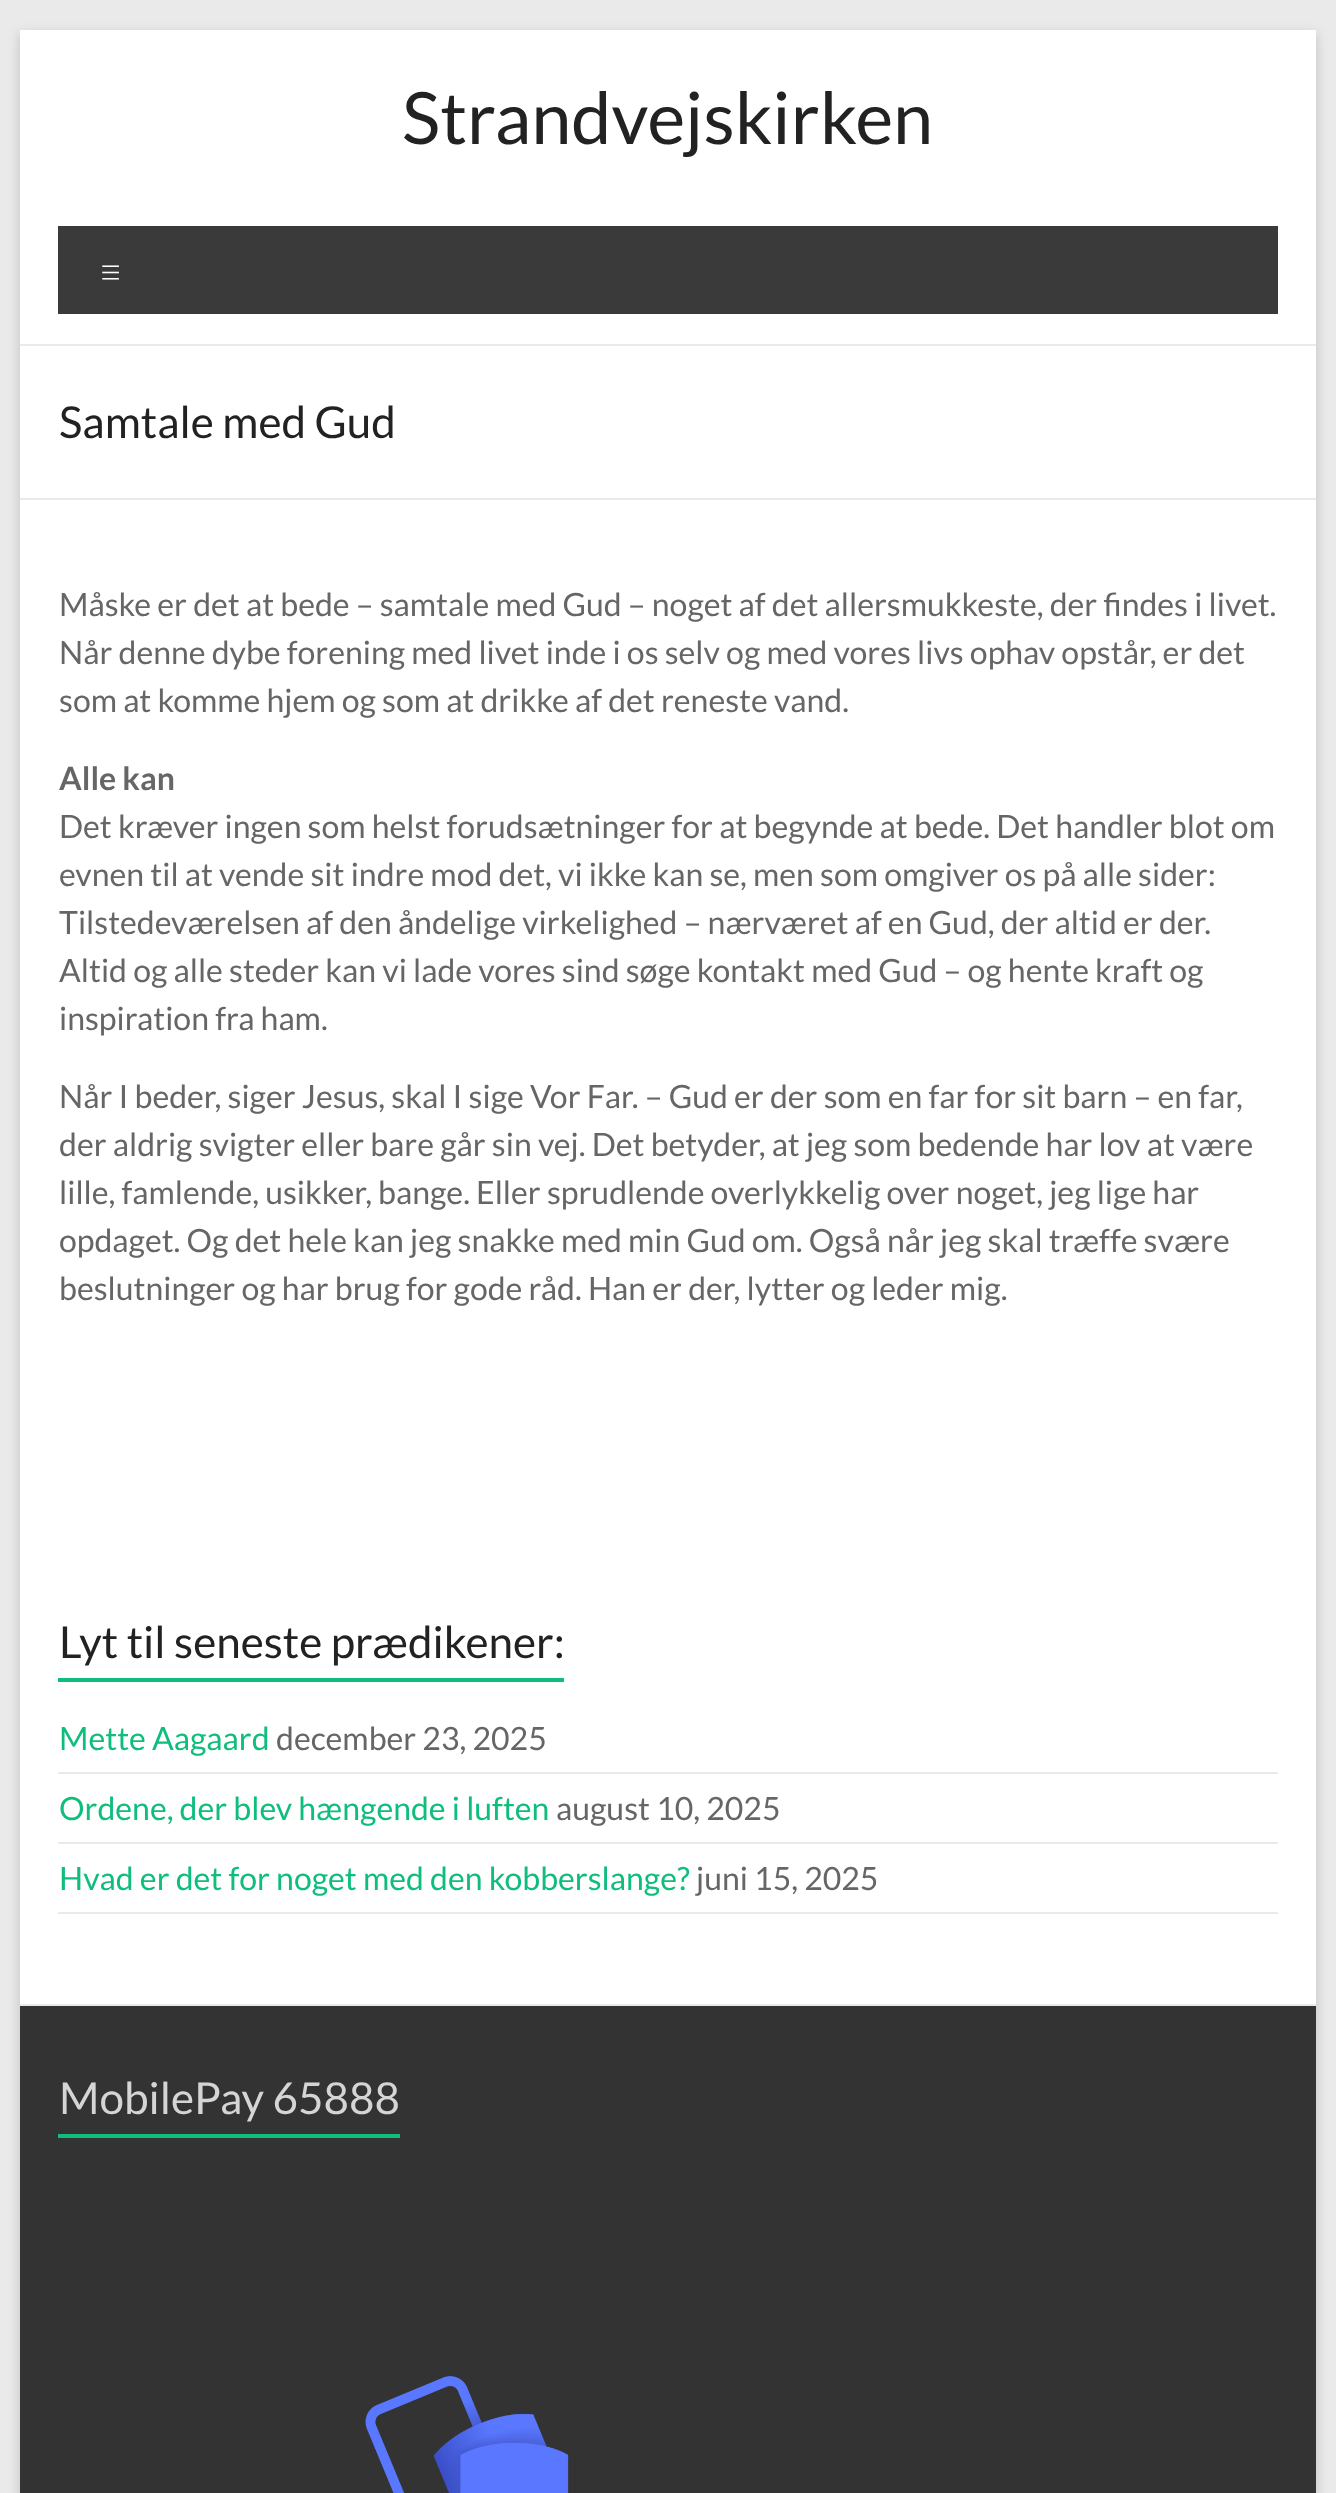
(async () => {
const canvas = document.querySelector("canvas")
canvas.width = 1336
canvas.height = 2493
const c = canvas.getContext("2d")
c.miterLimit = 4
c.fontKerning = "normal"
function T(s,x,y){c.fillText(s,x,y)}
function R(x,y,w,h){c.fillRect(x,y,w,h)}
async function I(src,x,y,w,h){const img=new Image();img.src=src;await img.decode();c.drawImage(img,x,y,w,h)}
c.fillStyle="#eaeaea"
R(0,0,1336,2493)
c.fillStyle="#6464644d"
c.filter="blur(6px)"
c.beginPath()
c.rect(20,34,1296,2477)
c.fill()
c.filter="none"
c.fillStyle="#fff"
R(20,30,1296,1974)
c.fillStyle="#eaeaea"
R(20,344,1296,2)
c.font="72px Lato"
c.fillStyle="#222"
T("Strandvejskirken",402,144)
c.fillStyle="#3a3a3a"
R(58,226,1220,88)
c.font="300 40px Lato"
c.fillStyle="#fff"
T("≡",99,286)
c.fillStyle="#eaeaea"
R(20,498,1296,2)
c.font="44px Lato"
c.fillStyle="#222"
T("Samtale med Gud",59,438)
c.font="32px Lato"
c.fillStyle="#666"
T("Måske er det at bede – samtale med Gud – noget af det allersmukkeste, der findes i livet.",59,616)
T("Når denne dybe forening med livet inde i os selv og med vores livs ophav opstår, er det",59,664)
T("som at komme hjem og som at drikke af det reneste vand.",59,712)
c.font="bold 32px Lato"
T("Alle kan",59,790)
c.font="32px Lato"
T("Det kræver ingen som helst forudsætninger for at begynde at bede. Det handler blot om",59,838)
T("evnen til at vende sit indre mod det, vi ikke kan se, men som omgiver os på alle sider:",59,886)
T("Tilstedeværelsen af den åndelige virkelighed – nærværet af en Gud, der altid er der.",59,934)
T("Altid og alle steder kan vi lade vores sind søge kontakt med Gud – og hente kraft og",59,982)
T("inspiration fra ham.",59,1030)
T("Når I beder, siger Jesus, skal I sige Vor Far. – Gud er der som en far for sit barn – en far,",59,1108)
T("der aldrig svigter eller bare går sin vej. Det betyder, at jeg som bedende har lov at være",59,1156)
T("lille, famlende, usikker, bange. Eller sprudlende overlykkelig over noget, jeg lige har",59,1204)
T("opdaget. Og det hele kan jeg snakke med min Gud om. Også når jeg skal træffe svære",59,1252)
T("beslutninger og har brug for gode råd. Han er der, lytter og leder mig.",59,1300)
c.font="44px Lato"
c.fillStyle="#222"
T("Lyt til seneste prædikener:",59,1658)
c.fillStyle="#0fbe7c"
R(58,1678,506,4)
c.fillStyle="#eaeaea"
R(58,1772,1220,2)
c.font="32px Lato"
c.fillStyle="#0fbe7c"
T("Mette Aagaard",59,1750)
c.fillStyle="#666"
T("december 23, 2025",276,1750)
c.fillStyle="#eaeaea"
R(58,1842,1220,2)
c.fillStyle="#0fbe7c"
T("Ordene, der blev hængende i luften",59,1820)
c.fillStyle="#666"
T("august 10, 2025",556,1820)
c.fillStyle="#eaeaea"
R(58,1912,1220,2)
c.fillStyle="#0fbe7c"
T("Hvad er det for noget med den kobberslange?",59,1890)
c.fillStyle="#666"
T("juni 15, 2025",696,1890)
c.fillStyle="#333"
R(20,2006,1296,487)
c.fillStyle="#eaeaea"
R(20,2004,1296,2)
c.font="44px Lato"
c.fillStyle="#d5d5d5"
T("MobilePay 65888",59,2114)
c.fillStyle="#0fbe7c"
R(58,2134,342,4)
await I("1.png",365,2375,204,118)
})()
